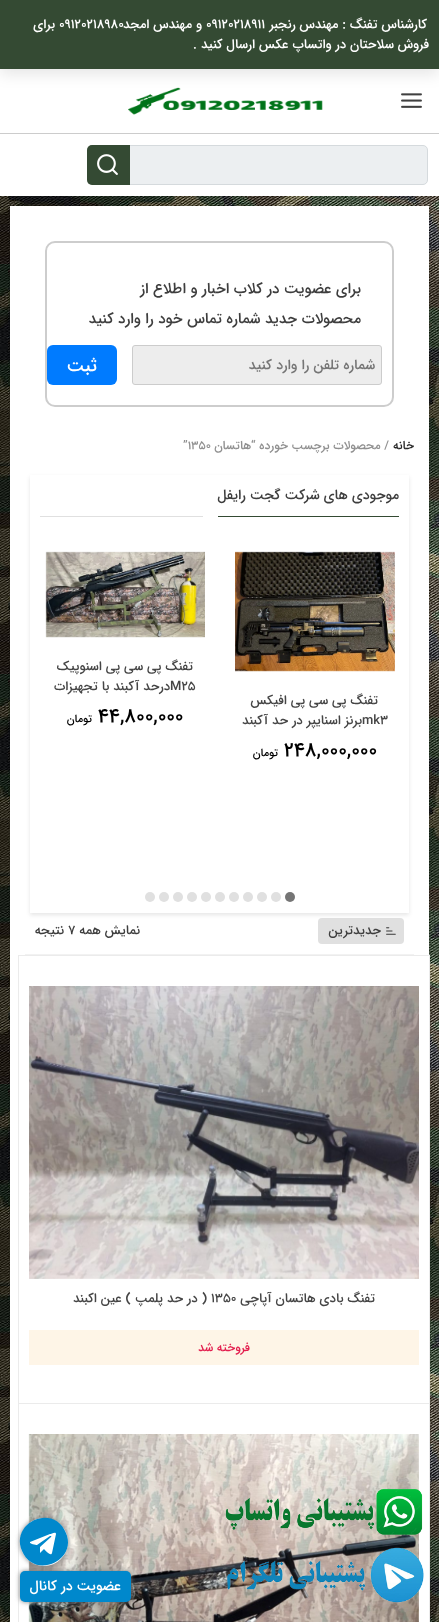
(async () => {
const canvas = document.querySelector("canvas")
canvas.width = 439
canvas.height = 1622
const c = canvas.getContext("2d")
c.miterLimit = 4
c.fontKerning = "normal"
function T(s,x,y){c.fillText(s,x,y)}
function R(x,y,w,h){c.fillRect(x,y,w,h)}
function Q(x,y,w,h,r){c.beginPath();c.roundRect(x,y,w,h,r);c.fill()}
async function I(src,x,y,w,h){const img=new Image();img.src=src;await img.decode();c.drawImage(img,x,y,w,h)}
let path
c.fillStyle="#fff"
R(0,0,439,1622)
await I("1.png",0,196,439,1426)
await I("2.png",401,93,21,15)
await I("3.png",128,87,195,28)
c.fillStyle="#0000001a"
c.filter="blur(7.5px)"
c.beginPath()
c.rect(0,5,439,69)
c.fill()
c.filter="none"
c.fillStyle="#344a33"
R(0,0,439,69)
c.direction="rtl"
c.font="500 13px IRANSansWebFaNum"
c.fillStyle="#fff"
T("کارشناس تفنگ : مهندس رنجبر",427,28)
c.direction="ltr"
T("09120218911",206,28)
c.direction="rtl"
T("و مهندس امجد",202,28)
c.direction="ltr"
T("09120218980",59,28)
c.direction="rtl"
T("برای",55,28)
T("فروش سلاحتان در واتساپ عکس ارسال کنید .",429,48)
c.fillStyle="#ccc"
R(0,133,439,1)
c.fillStyle="#eceff1"
c.beginPath()
c.roundRect(87.5,145.5,340,39,4.5)
c.fill()
c.strokeStyle="#d5dadd"
c.stroke()
c.fillStyle="#344a33"
c.beginPath()
c.roundRect(87,145,43,40,[5,0,0,5])
c.fill()
await I("4.png",97,154,21,21)
c.fillStyle="#0000001a"
c.filter="blur(2px)"
c.beginPath()
c.rect(10,208,419,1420)
c.fill()
c.filter="none"
c.fillStyle="#fff"
R(10,206,419,1416)
c.beginPath()
c.roundRect(46,242,347,164,9)
c.strokeStyle="#cdcdcd"
c.lineWidth=2
c.stroke()
c.font="500 15px IRANSansWebFaNum"
c.fillStyle="#3e3e3e"
T("برای عضویت در کلاب اخبار و اطلاع از",361,293)
T("محصولات جدید شماره تماس خود را وارد کنید",361,323)
c.fillStyle="#ededed"
c.beginPath()
c.roundRect(132.5,345.5,249,39,2.5)
c.fill()
c.strokeStyle="#ccc"
c.lineWidth=1
c.stroke()
c.font="500 14px IRANSansWebFaNum"
c.fillStyle="#757575"
T("شماره تلفن را وارد کنید",375,369)
c.fillStyle="#007bff"
Q(47,345,70,40,6)
c.font="500 18px IRANSansWebFaNum"
c.fillStyle="#fff"
T("ثبت",97,371)
c.font="500 12px IRANSansWebFaNum"
c.fillStyle="#272727"
T("خانه",414,449)
c.fillStyle="#909090"
T("/ محصولات برچسب خورده “هاتسان",389,449)
c.direction="ltr"
T("”1350",183,449)
c.fillStyle="#e0e0e0"
Q(318,918,86,26,4)
c.save()
path = new Path2D("M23 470h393v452h-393zm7 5h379v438h-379z")
c.clip(path,"evenodd")
c.fillStyle="#0000001a"
c.filter="blur(2px)"
c.beginPath()
c.rect(30,477,379,438)
c.fill()
c.filter="none"
c.restore()
R(40,516,163,1)
c.direction="rtl"
c.font="500 14px IRANSansWebFaNum"
c.fillStyle="#3e3e3e"
T("موجودی های شرکت گجت رایفل",399,499)
c.fillStyle="#344a33"
R(218,516,181,1)
await I("5.png",235,551,160,121)
c.font="500 13px IRANSansWebFaNum"
c.fillStyle="#454545"
T("تفنگ پی سی پی افیکس",378,704)
c.direction="ltr"
T("mk3",362,724)
c.direction="rtl"
T("برنز اسنایپر در حد آکبند",362,724)
c.direction="ltr"
c.font="500 20px IRANSansWebFaNum"
c.fillStyle="#000"
T("248,000,000",284,756)
c.direction="rtl"
c.font="500 11px IRANSansWebFaNum"
T("تومان",278,756)
await I("6.png",45,551,160,87)
c.font="500 13px IRANSansWebFaNum"
c.fillStyle="#454545"
T("تفنگ پی سی پی اسنوپیک",193,670)
c.direction="ltr"
T("M25",170,690)
c.direction="rtl"
T("درحد آکبند با تجهیزات",170,690)
c.direction="ltr"
c.font="500 20px IRANSansWebFaNum"
c.fillStyle="#000"
T("44,800,000",98,722)
c.direction="rtl"
c.font="500 11px IRANSansWebFaNum"
T("تومان",92,722)
c.fillStyle="#757575"
c.beginPath()
c.arc(290,897,5,0,7)
c.fill()
c.fillStyle="#e0e0e0"
c.beginPath()
c.arc(276,897,5,0,7)
c.fill()
c.beginPath()
c.arc(262,897,5,0,7)
c.fill()
c.beginPath()
c.arc(248,897,5,0,7)
c.fill()
c.beginPath()
c.arc(234,897,5,0,7)
c.fill()
c.beginPath()
c.arc(220,897,5,0,7)
c.fill()
c.beginPath()
c.arc(206,897,5,0,7)
c.fill()
c.beginPath()
c.arc(192,897,5,0,7)
c.fill()
c.beginPath()
c.arc(178,897,5,0,7)
c.fill()
c.beginPath()
c.arc(164,897,5,0,7)
c.fill()
c.beginPath()
c.arc(150,897,5,0,7)
c.fill()
c.fillStyle="#f2f2f2"
R(25,954,389,1)
await I("7.png",386,927,10,8)
c.font="500 13px IRANSansWebFaNum"
c.fillStyle="#3e3e3e"
T("جدیدترین",381,934)
T("نمایش همه",140,934)
c.direction="ltr"
T("7",68,934)
c.direction="rtl"
T("نتیجه",64,934)
await I("8.png",29,986,390,293)
c.fillStyle="#fef5e7"
R(29,1330,390,35)
c.strokeStyle="#ebebeb"
c.strokeRect(18.5,955.5,411,448)
c.fillStyle="#454545"
T("تفنگ بادی هاتسان آپاچی",375,1302)
c.direction="ltr"
T("۱۳۵۰",211,1302)
c.direction="rtl"
T("( در حد پلمپ ) عین اکبند",207,1302)
c.font="500 12px IRANSansWebFaNum"
c.fillStyle="#e31f4f"
T("فروخته شد",250,1351)
await I("9.png",28,1434,391,188)
c.strokeRect(18.5,1403.5,411,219)
await I("10.png",225,1489,198,46)
await I("11.png",227,1547,197,56)
c.fillStyle="#808080"
c.filter="blur(2.5px)"
c.beginPath()
c.roundRect(20,1518,48,48,24)
c.fill()
c.filter="none"
c.fillStyle="#fff"
c.beginPath()
c.arc(44,1542,24,0,7)
c.fill()
c.fillStyle="#08c"
path = new Path2D("M52 1553l4-19c0-3-5 0-6 0l-20 8c-1 2 6 3 7 3l13-9c1 0 2 0 1 1l-11 10v6l4-4c1 1 7 8 8 4zm14-20c12 28-32 47-44 18c-12-29 32-48 44-18z")
c.fill(path)
c.fillStyle="#808080"
c.filter="blur(2.5px)"
c.beginPath()
c.roundRect(20,1571,111,31,5)
c.fill()
c.filter="none"
c.fillStyle="#08c"
Q(20,1571,111,31,5)
c.font="500 14px IRANSansWebFaNum"
c.fillStyle="#fff"
T("عضویت در کانال",121,1590)
})()
